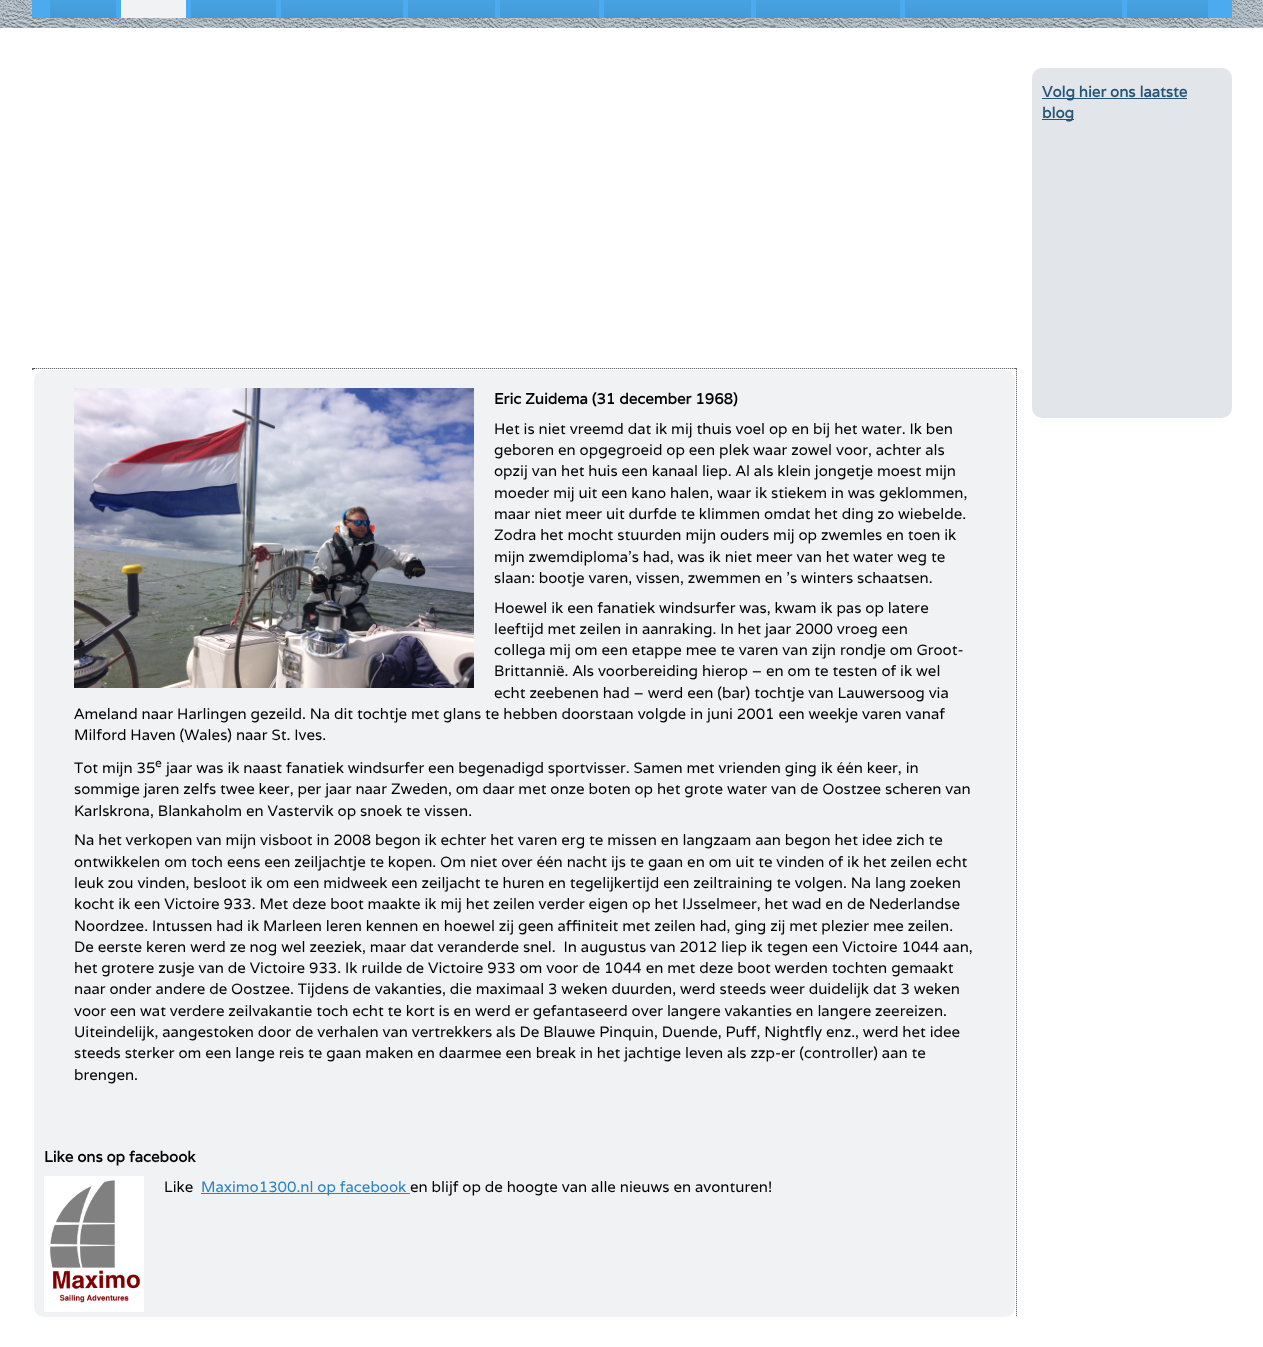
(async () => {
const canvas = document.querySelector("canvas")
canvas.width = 1263
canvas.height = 1347
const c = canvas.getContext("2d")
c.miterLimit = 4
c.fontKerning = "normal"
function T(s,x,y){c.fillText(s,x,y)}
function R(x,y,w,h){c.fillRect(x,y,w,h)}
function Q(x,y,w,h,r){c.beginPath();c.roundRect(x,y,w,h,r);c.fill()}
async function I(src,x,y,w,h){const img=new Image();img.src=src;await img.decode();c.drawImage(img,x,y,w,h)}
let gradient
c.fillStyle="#fff"
R(0,0,1263,1347)
await I("1.png",0,0,1263,28)
c.fillStyle="#4cabef"
Q(32,-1,1200,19,1)
gradient = c.createLinearGradient(83,18,83,-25)
gradient.addColorStop(0,"#449ad7")
gradient.addColorStop(1,"#4cabef")
c.fillStyle = gradient
R(50,0,66,18)
c.fillStyle="#f1f2f4"
R(121,0,65,18)
gradient = c.createLinearGradient(234,18,234,-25)
gradient.addColorStop(0,"#449ad7")
gradient.addColorStop(1,"#4cabef")
c.fillStyle = gradient
R(191,0,85,18)
gradient = c.createLinearGradient(342,18,342,-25)
gradient.addColorStop(0,"#449ad7")
gradient.addColorStop(1,"#4cabef")
c.fillStyle = gradient
R(281,0,122,18)
gradient = c.createLinearGradient(452,18,452,-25)
gradient.addColorStop(0,"#449ad7")
gradient.addColorStop(1,"#4cabef")
c.fillStyle = gradient
R(408,0,87,18)
gradient = c.createLinearGradient(550,18,550,-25)
gradient.addColorStop(0,"#449ad7")
gradient.addColorStop(1,"#4cabef")
c.fillStyle = gradient
R(500,0,99,18)
gradient = c.createLinearGradient(678,18,678,-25)
gradient.addColorStop(0,"#449ad7")
gradient.addColorStop(1,"#4cabef")
c.fillStyle = gradient
R(604,0,147,18)
gradient = c.createLinearGradient(828,18,828,-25)
gradient.addColorStop(0,"#449ad7")
gradient.addColorStop(1,"#4cabef")
c.fillStyle = gradient
R(756,0,144,18)
gradient = c.createLinearGradient(1014,18,1014,-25)
gradient.addColorStop(0,"#449ad7")
gradient.addColorStop(1,"#4cabef")
c.fillStyle = gradient
R(905,0,217,18)
gradient = c.createLinearGradient(1168,18,1168,-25)
gradient.addColorStop(0,"#449ad7")
gradient.addColorStop(1,"#4cabef")
c.fillStyle = gradient
R(1127,0,81,18)
c.fillStyle="#e2e6ea"
Q(1032,68,200,350,10)
c.fillStyle="#275576"
R(1042,98,145,1)
c.font="bold 15px Varela"
T("Volg hier ons laatste",1042,97)
R(1042,119,32,1)
T("blog",1042,118)
await I("2.png",32,368,3,2)
await I("3.png",1015,368,2,2)
await I("4.png",34,368,981,1)
await I("5.png",1016,370,1,947)
c.fillStyle="#f1f2f4"
Q(34,370,981,947,10)
await I("6.png",74,388,400,300)
c.fillStyle="#000"
T("Eric Zuidema (31 december 1968)",494,404)
c.font="15px Varela"
T("Het is niet vreemd dat ik mij thuis voel op en bij het water. Ik ben",494,434)
T("geboren en opgegroeid op een plek waar zowel voor, achter als",494,455)
T("opzij van het huis een kanaal liep. Al als klein jongetje moest mijn",494,476)
T("moeder mij uit een kano halen, waar ik stiekem in was geklommen,",494,498)
T("maar niet meer uit durfde te klimmen omdat het ding zo wiebelde.",494,519)
T("Zodra het mocht stuurden mijn ouders mij op zwemles en toen ik",494,540)
T("mijn zwemdiploma’s had, was ik niet meer van het water weg te",494,562)
T("slaan: bootje varen, vissen, zwemmen en ’s winters schaatsen.",494,583)
T("Hoewel ik een fanatiek windsurfer was, kwam ik pas op latere",494,613)
T("leeftijd met zeilen in aanraking. In het jaar 2000 vroeg een",494,634)
T("collega mij om een etappe mee te varen van zijn rondje om Groot-",494,655)
T("Brittannië. Als voorbereiding hierop – en om te testen of ik wel",494,676)
T("echt zeebenen had – werd een (bar) tochtje van Lauwersoog via",494,698)
T("Ameland naar Harlingen gezeild. Na dit tochtje met glans te hebben doorstaan volgde in juni 2001 een weekje varen vanaf",74,719)
T("Milford Haven (Wales) naar St. Ives.",74,740)
T("Tot mijn 35",74,773)
c.font="12px Varela"
T("e",155,767)
c.font="15px Varela"
T("jaar was ik naast fanatiek windsurfer een begenadigd sportvisser. Samen met vrienden ging ik één keer, in",166,773)
T("sommige jaren zelfs twee keer, per jaar naar Zweden, om daar met onze boten op het grote water van de Oostzee scheren van",74,794)
T("Karlskrona, Blankaholm en Vastervik op snoek te vissen.",74,816)
T("Na het verkopen van mijn visboot in 2008 begon ik echter het varen erg te missen en langzaam aan begon het idee zich te",74,845)
T("ontwikkelen om toch eens een zeiljachtje te kopen. Om niet over één nacht ijs te gaan en om uit te vinden of ik het zeilen echt",74,867)
T("leuk zou vinden, besloot ik om een midweek een zeiljacht te huren en tegelijkertijd een zeiltraining te volgen. Na lang zoeken",74,888)
T("kocht ik een Victoire 933. Met deze boot maakte ik mij het zeilen verder eigen op het IJsselmeer, het wad en de Nederlandse",74,909)
T("Noordzee. Intussen had ik Marleen leren kennen en hoewel zij geen affiniteit met zeilen had, ging zij met plezier mee zeilen.",74,931)
T("De eerste keren werd ze nog wel zeeziek, maar dat veranderde snel.  In augustus van 2012 liep ik tegen een Victoire 1044 aan,",74,952)
T("het grotere zusje van de Victoire 933. Ik ruilde de Victoire 933 om voor de 1044 en met deze boot werden tochten gemaakt",74,973)
T("naar onder andere de Oostzee. Tijdens de vakanties, die maximaal 3 weken duurden, werd steeds weer duidelijk dat 3 weken",74,994)
T("voor een wat verdere zeilvakantie toch echt te kort is en werd er gefantaseerd over langere vakanties en langere zeereizen.",74,1016)
T("Uiteindelijk, aangestoken door de verhalen van vertrekkers als De Blauwe Pinquin, Duende, Puff, Nightfly enz., werd het idee",74,1037)
T("steeds sterker om een lange reis te gaan maken en daarmee een break in het jachtige leven als zzp-er (controller) aan te",74,1058)
T("brengen.",74,1080)
c.font="bold 15px Varela"
T("Like ons op facebook",44,1162)
await I("7.png",44,1176,100,136)
c.font="15px Varela"
T("Like",164,1192)
c.fillStyle="#2783c5"
R(201,1193,209,1)
T("Maximo1300.nl op facebook",201,1192)
c.fillStyle="#000"
T("en blijf op de hoogte van alle nieuws en avonturen!",410,1192)
})()
